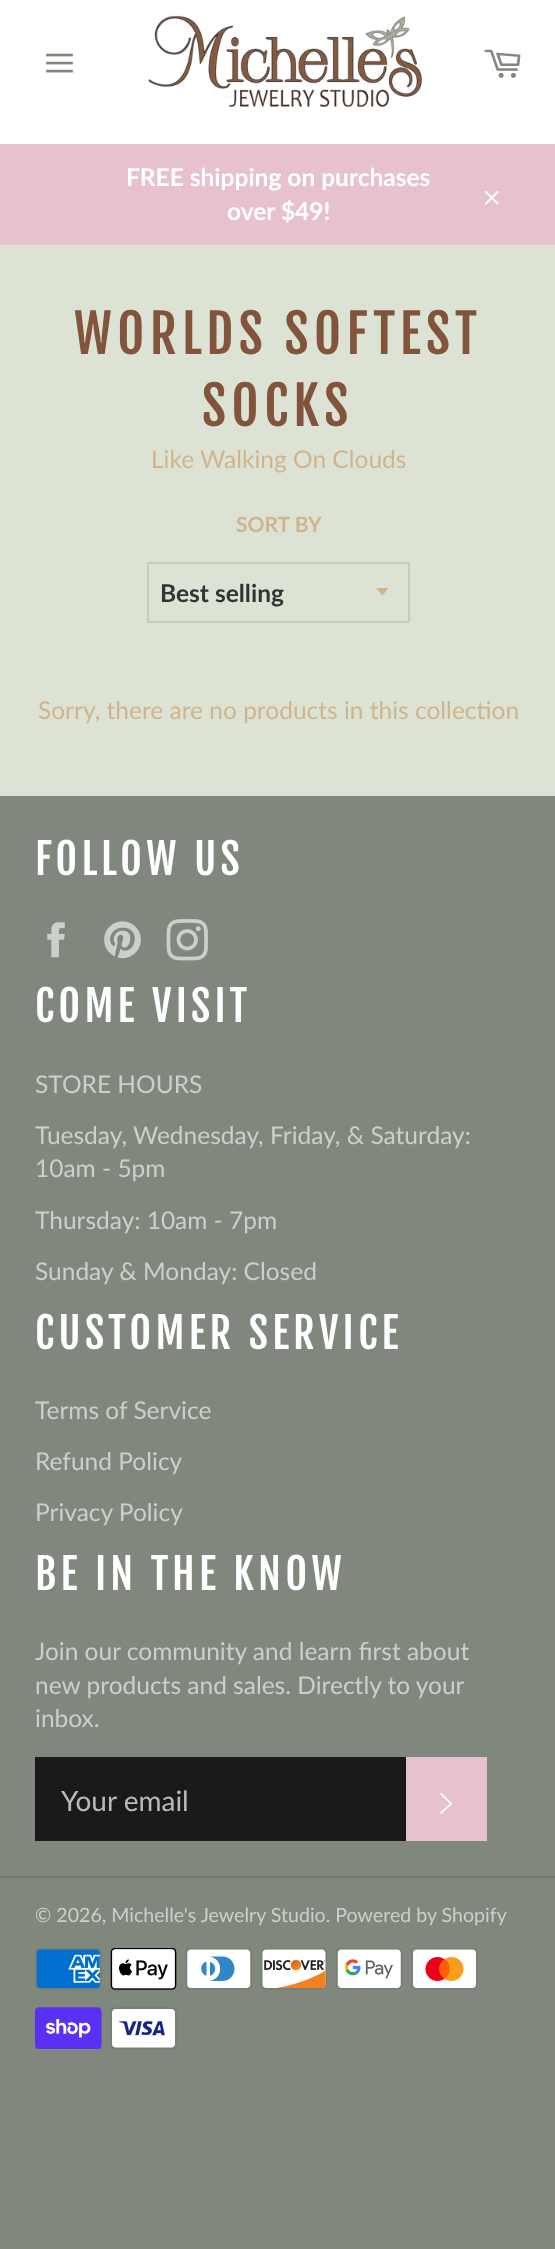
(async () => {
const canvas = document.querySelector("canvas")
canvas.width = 555
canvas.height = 2249
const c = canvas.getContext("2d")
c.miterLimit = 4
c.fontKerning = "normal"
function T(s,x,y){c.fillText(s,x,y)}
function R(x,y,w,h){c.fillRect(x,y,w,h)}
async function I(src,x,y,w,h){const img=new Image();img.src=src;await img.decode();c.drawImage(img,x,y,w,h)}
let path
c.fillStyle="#80887d"
R(0,0,555,2249)
c.fillStyle="#dce3d4"
R(0,245,555,551)
c.fillStyle="#fff"
R(0,0,555,144)
await I("1.png",46,53,27,20)
await I("2.png",148,15,274,92)
await I("3.png",484,49,37,29)
c.fillStyle="#e8c1d1"
R(0,144,555,101)
c.font="bold 24.5px Lato"
c.fillStyle="#fff"
T("FREE shipping on purchases",126,186)
T("over $49!",227,220)
await I("4.png",484,190,15,15)
c.letterSpacing="5.25px"
c.font="52.5px Fjalla One"
c.fillStyle="#81543b"
T("WORLDS SOFTEST",74,354)
T("SOCKS",202,426)
c.letterSpacing="0px"
c.font="24.5px Lato"
c.fillStyle="#d2b48c"
T("Like Walking On Clouds",151,468)
c.font="bold 21px Lato"
T("SORT BY",236,532)
path = new Path2D("M376 588l6.5 7.5l6-7.5z")
c.fill(path)
c.strokeStyle="#c3cfb5"
c.lineWidth=2
c.strokeRect(148,563,261,59)
c.font="bold 24.5px Lato"
c.fillStyle="#333"
T("Best selling",160,602)
c.font="24.5px Lato"
c.fillStyle="#d2b48c"
T("Sorry, there are no products in this collection",38,719)
c.letterSpacing="4.25px"
c.font="42px Fjalla One"
c.fillStyle="#fff"
T("FOLLOW US",35,875)
await I("5.png",47,922,18,36)
await I("6.png",104,921,37,38)
await I("7.png",166,919,42,42)
T("COME VISIT",35,1022)
c.letterSpacing="0px"
c.font="24.5px Lato"
c.fillStyle="#cccfcb"
T("STORE HOURS",35,1093)
T("Tuesday, Wednesday, Friday, & Saturday:",35,1144)
T("10am - 5pm",35,1177)
T("Thursday: 10am - 7pm",35,1229)
T("Sunday & Monday: Closed",35,1280)
c.letterSpacing="4.25px"
c.font="42px Fjalla One"
c.fillStyle="#fff"
T("CUSTOMER SERVICE",35,1349)
c.letterSpacing="0px"
c.font="24.5px Lato"
c.fillStyle="#cccfcb"
T("Terms of Service",35,1419)
T("Refund Policy",35,1470)
T("Privacy Policy",35,1521)
c.letterSpacing="4.25px"
c.font="42px Fjalla One"
c.fillStyle="#fff"
T("BE IN THE KNOW",35,1590)
c.letterSpacing="0px"
c.font="24.5px Lato"
c.fillStyle="#cccfcb"
T("Join our community and learn first about",35,1660)
T("new products and sales. Directly to your",35,1694)
T("inbox.",35,1727)
c.fillStyle="#1a1a1a"
R(35,1757,371,84)
c.font="28px Lato"
c.fillStyle="#bababa"
T("Your email",61,1811)
c.fillStyle="#e8c1d1"
R(406,1757,81,84)
c.fillStyle="#fff"
path = new Path2D("M440 1794l1-1.5l11.5 11l-11.5 10.5l-1-1.5l10-9z")
c.fill(path)
c.fillStyle="#737b71"
R(0,1876,555,2)
c.font="19.6px Lato"
c.fillStyle="#cccfcb"
T("© 2026, Michelle's Jewelry Studio. Powered by Shopify",35,1922)
await I("8.png",35,1948,67,42)
await I("9.png",110,1948,67,42)
await I("10.png",186,1948,66,42)
await I("11.png",261,1948,66,42)
await I("12.png",336,1948,67,42)
await I("13.png",411,1948,67,42)
await I("14.png",35,2007,67,42)
await I("15.png",110,2007,67,42)
})()
